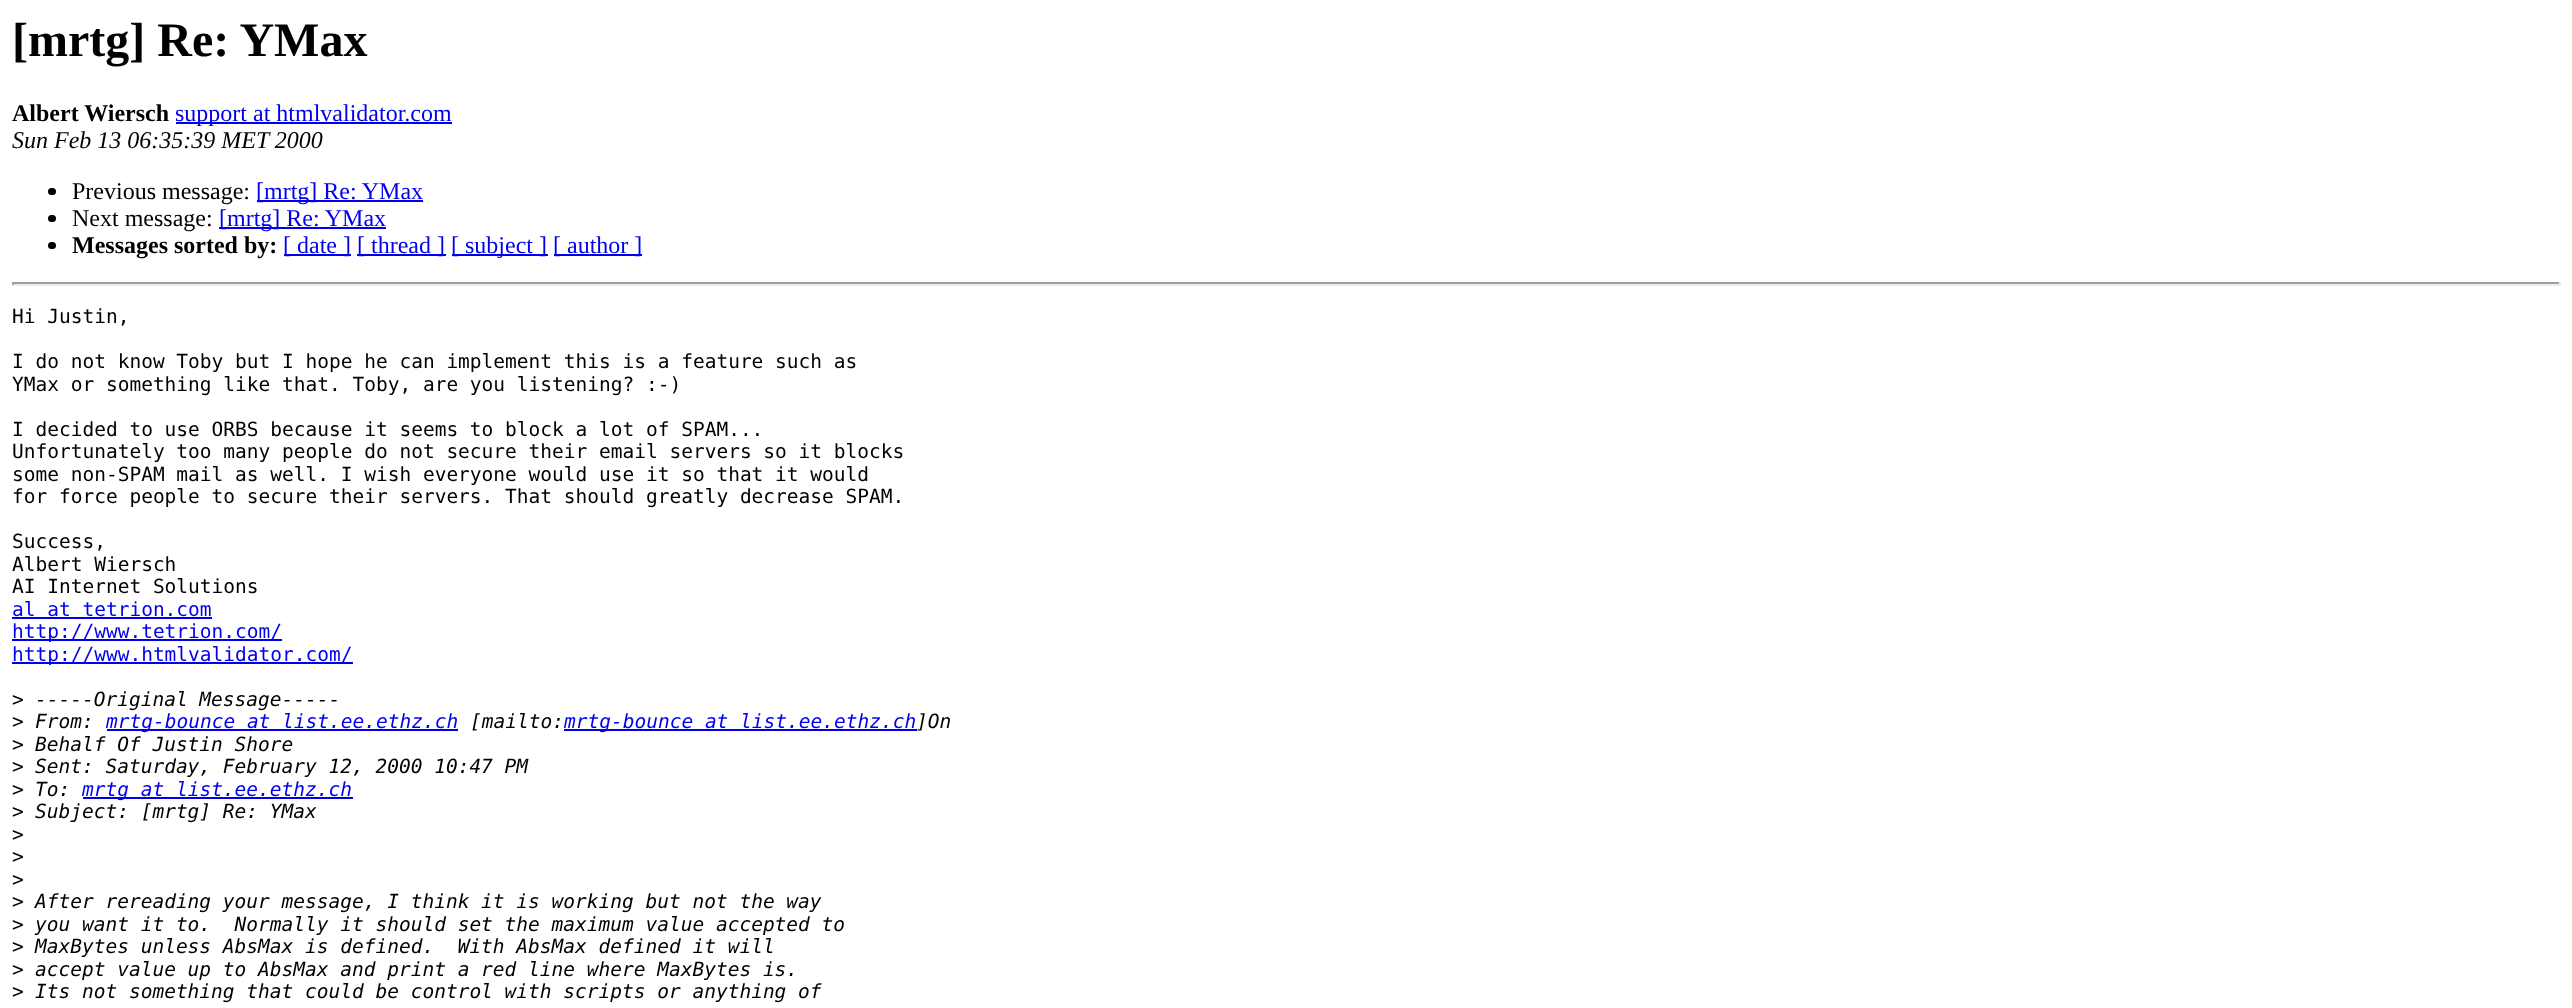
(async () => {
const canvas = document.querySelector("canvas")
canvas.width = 2572
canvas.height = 1008
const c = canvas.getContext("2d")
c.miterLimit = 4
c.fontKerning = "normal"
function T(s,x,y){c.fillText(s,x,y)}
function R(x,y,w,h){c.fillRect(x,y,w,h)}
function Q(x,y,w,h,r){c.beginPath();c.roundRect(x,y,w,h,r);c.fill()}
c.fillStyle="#fff"
R(0,0,2572,1008)
c.font="bold 48px Liberation Serif"
c.fillStyle="#000"
T("[mrtg] Re: YMax",12,56)
c.font="bold 24px Liberation Serif"
T("Albert Wiersch",12,121)
c.fillStyle="#00e"
R(176,122,276,2)
c.font="24px Liberation Serif"
T("support at htmlvalidator.com",175,121)
c.font="italic 24px Liberation Serif"
c.fillStyle="#000"
T("Sun Feb 13 06:35:39 MET 2000",12,148)
Q(48,188,8,7,3.5)
c.font="24px Liberation Serif"
T("Previous message:",72,199)
c.fillStyle="#00e"
R(257,200,166,2)
T("[mrtg] Re: YMax",256,199)
c.fillStyle="#000"
Q(48,215,8,7,3.5)
T("Next message:",72,226)
c.fillStyle="#00e"
R(219,227,167,2)
T("[mrtg] Re: YMax",219,226)
c.fillStyle="#000"
Q(48,242,8,7,3.5)
c.font="bold 24px Liberation Serif"
T("Messages sorted by:",72,253)
c.fillStyle="#00e"
R(284,254,67,2)
c.font="24px Liberation Serif"
T("[ date ]",283,253)
R(357,254,89,2)
T("[ thread ]",357,253)
R(452,254,96,2)
T("[ subject ]",451,253)
R(554,254,88,2)
T("[ author ]",553,253)
c.fillStyle="#9f9f9f"
R(12,282,2549,2)
c.fillStyle="#eee"
R(2559,282,2,3)
R(12,284,2549,2)
c.fillStyle="#9f9f9f"
R(12,282,2,3)
c.font="19.5px DejaVu Sans Mono"
c.fillStyle="#000"
T("Hi Justin,",12,323)
T("I do not know Toby but I hope he can implement this is a feature such as",12,368)
T("YMax or something like that. Toby, are you listening? :-)",12,391)
T("I decided to use ORBS because it seems to block a lot of SPAM...",12,436)
T("Unfortunately too many people do not secure their email servers so it blocks",12,458)
T("some non-SPAM mail as well. I wish everyone would use it so that it would",12,481)
T("for force people to secure their servers. That should greatly decrease SPAM.",12,503)
T("Success,",12,548)
T("Albert Wiersch",12,571)
T("AI Internet Solutions",12,593)
c.fillStyle="#00e"
T("al at tetrion.com",12,616)
R(12,617,200,2)
R(12,639,270,2)
T("http://www.tetrion.com/",12,638)
R(12,662,341,2)
T("http://www.htmlvalidator.com/",12,661)
c.fillStyle="#000"
T(">",12,706)
c.font="italic 19.5px DejaVu Sans Mono"
T("-----Original Message-----",35,706)
c.font="19.5px DejaVu Sans Mono"
T(">",12,728)
c.font="italic 19.5px DejaVu Sans Mono"
T("From:",35,728)
c.fillStyle="#00e"
R(107,729,351,2)
T("mrtg-bounce at list.ee.ethz.ch",106,728)
c.fillStyle="#000"
T("[mailto:",470,728)
c.fillStyle="#00e"
R(564,729,353,2)
T("mrtg-bounce at list.ee.ethz.ch",564,728)
c.fillStyle="#000"
T("]On",916,728)
c.font="19.5px DejaVu Sans Mono"
T(">",12,751)
c.font="italic 19.5px DejaVu Sans Mono"
T("Behalf Of Justin Shore",35,751)
c.font="19.5px DejaVu Sans Mono"
T(">",12,773)
c.font="italic 19.5px DejaVu Sans Mono"
T("Sent: Saturday, February 12, 2000 10:47 PM",35,773)
c.font="19.5px DejaVu Sans Mono"
T(">",12,796)
c.font="italic 19.5px DejaVu Sans Mono"
T("To:",35,796)
c.fillStyle="#00e"
R(83,797,270,2)
T("mrtg at list.ee.ethz.ch",82,796)
c.font="19.5px DejaVu Sans Mono"
c.fillStyle="#000"
T(">",12,818)
c.font="italic 19.5px DejaVu Sans Mono"
T("Subject: [mrtg] Re: YMax",35,818)
c.font="19.5px DejaVu Sans Mono"
T(">",12,841)
T(">",12,863)
T(">",12,886)
T(">",12,908)
c.font="italic 19.5px DejaVu Sans Mono"
T("After rereading your message, I think it is working but not the way",35,908)
c.font="19.5px DejaVu Sans Mono"
T(">",12,931)
c.font="italic 19.5px DejaVu Sans Mono"
T("you want it to.  Normally it should set the maximum value accepted to",35,931)
c.font="19.5px DejaVu Sans Mono"
T(">",12,953)
c.font="italic 19.5px DejaVu Sans Mono"
T("MaxBytes unless AbsMax is defined.  With AbsMax defined it will",35,953)
c.font="19.5px DejaVu Sans Mono"
T(">",12,976)
c.font="italic 19.5px DejaVu Sans Mono"
T("accept value up to AbsMax and print a red line where MaxBytes is.",35,976)
c.font="19.5px DejaVu Sans Mono"
T(">",12,998)
c.font="italic 19.5px DejaVu Sans Mono"
T("Its not something that could be control with scripts or anything of",35,998)
})()
